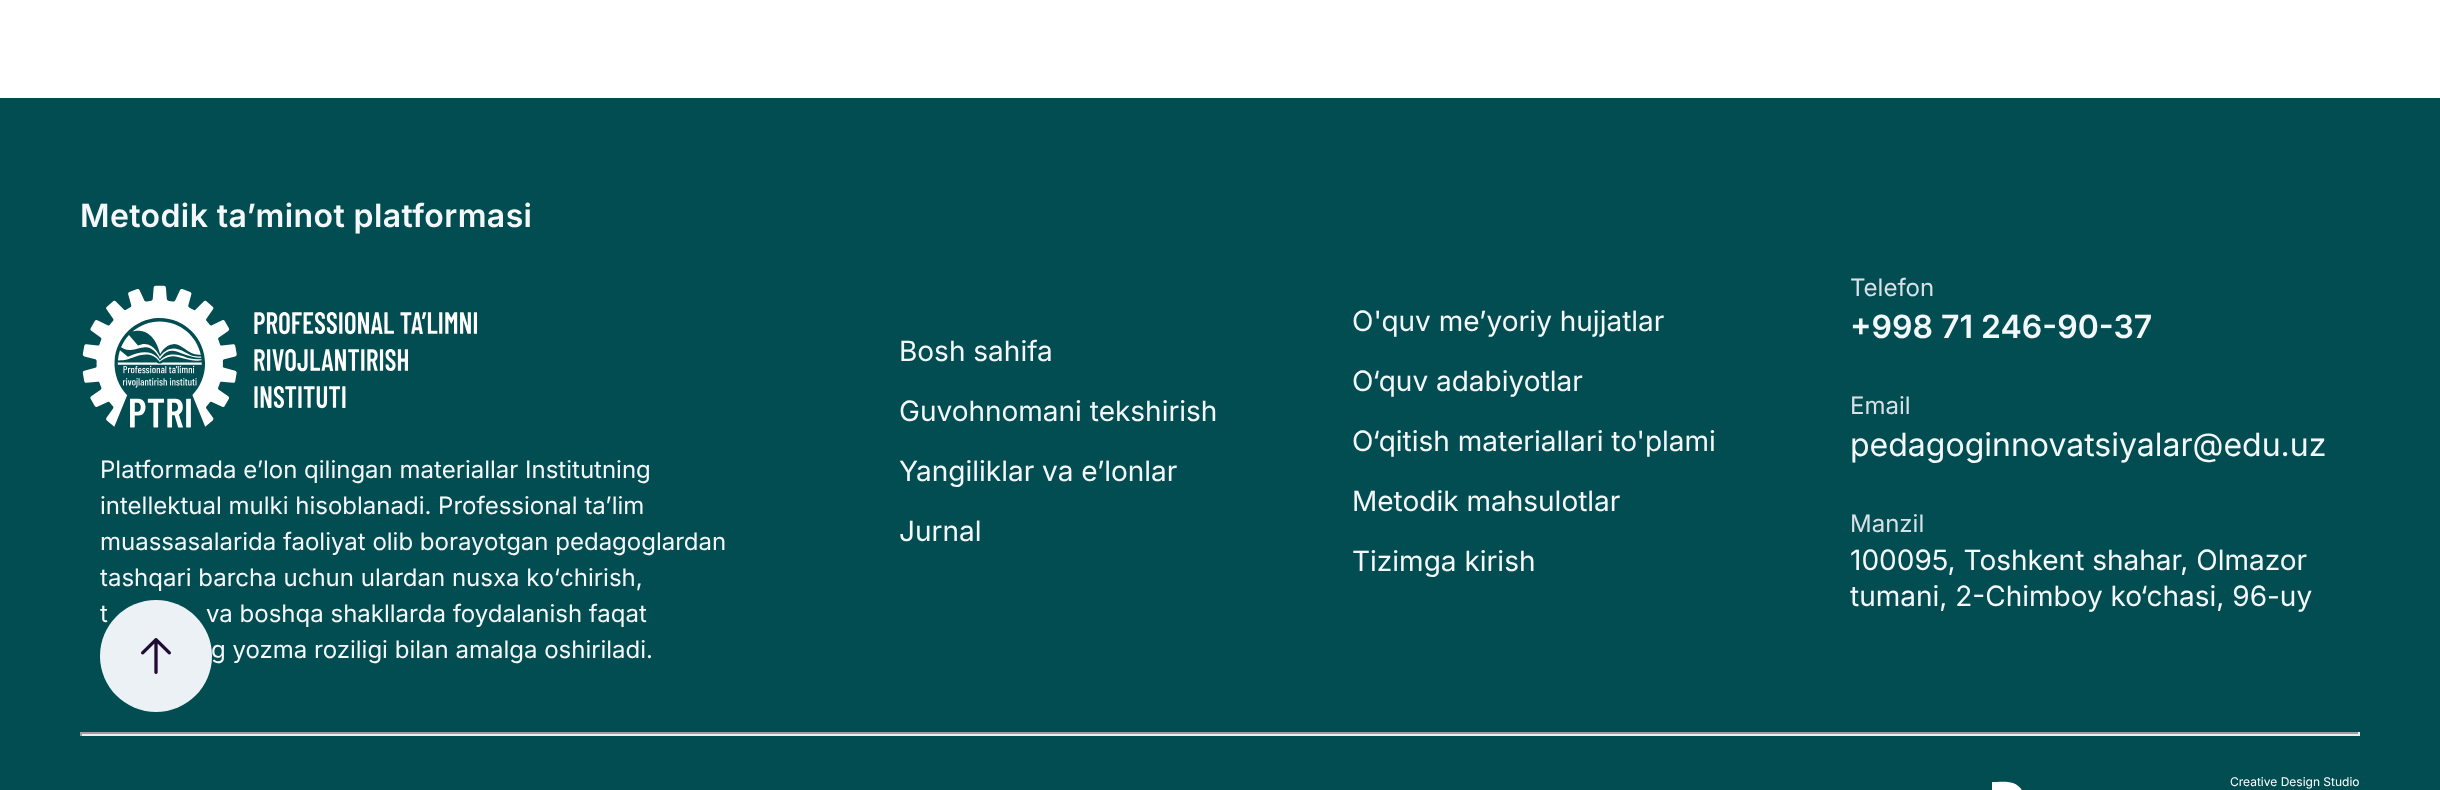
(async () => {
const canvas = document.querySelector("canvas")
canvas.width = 2440
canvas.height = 790
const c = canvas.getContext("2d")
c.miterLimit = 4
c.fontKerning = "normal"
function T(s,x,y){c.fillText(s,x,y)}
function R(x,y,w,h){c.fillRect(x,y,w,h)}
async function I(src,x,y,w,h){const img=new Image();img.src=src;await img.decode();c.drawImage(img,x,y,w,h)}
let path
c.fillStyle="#fff"
R(0,0,2440,790)
c.fillStyle="#014d51"
R(0,98,2440,692)
c.letterSpacing="0.4px"
c.font="600 32px Inter"
c.fillStyle="#f5f8fa"
T("Metodik ta’minot platformasi",80,227)
await I("1.png",82,285,396,143)
c.letterSpacing="0px"
c.font="24px Inter"
T("Platformada e’lon qilingan materiallar Institutning",100,478)
T("intellektual mulki hisoblanadi. Professional ta’lim",100,514)
T("muassasalarida faoliyat olib borayotgan pedagoglardan",100,550)
T("tashqari barcha uchun ulardan nusxa kо‘chirish,",100,586)
T("t",100,622)
T("va boshqa shakllarda foydalanish faqat",206,622)
T("g yozma roziligi bilan amalga oshiriladi.",211,658)
c.font="28px Inter"
T("Bosh sahifa",899,361)
T("Guvohnomani tekshirish",899,421)
T("Yangiliklar va e’lonlar",899,481)
T("Jurnal",899,541)
T("O'quv me’yoriy hujjatlar",1352,331)
T("O‘quv adabiyotlar",1352,391)
T("O‘qitish materiallari to'plami",1352,451)
T("Metodik mahsulotlar",1352,511)
T("Tizimga kirish",1352,571)
c.font="24px Inter"
c.fillStyle="#d8e1e8"
T("Telefon",1850,296)
c.font="600 32px Inter"
c.fillStyle="#f5f8fa"
T("+998 71 246-90-37",1850,338)
c.font="24px Inter"
c.fillStyle="#d8e1e8"
T("Email",1850,414)
c.font="32px Inter"
c.fillStyle="#f5f8fa"
T("pedagoginnovatsiyalar@edu.uz",1850,456)
c.font="24px Inter"
c.fillStyle="#d8e1e8"
T("Manzil",1850,532)
c.font="28px Inter"
c.fillStyle="#f5f8fa"
T("100095, Toshkent shahar, Olmazor",1850,570)
T("tumani, 2-Chimboy ko‘chasi, 96-uy",1850,606)
c.fillStyle="#9f9f9f"
R(80,732,2280,2)
c.fillStyle="#eee"
R(2358,732,2,4)
R(80,734,2280,2)
c.fillStyle="#9f9f9f"
R(80,732,2,4)
c.fillStyle="#fff"
path = new Path2D("M1992 782c6 0 15-1 21 1c17 6 13 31-5 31v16h-16v-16h-16v-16h16zm16 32v-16h-16v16z")
c.fill(path,"evenodd")
c.font="12px Inter"
T("Creative Design Studio",2230,786)
c.fillStyle="#ebf1f5"
c.beginPath()
c.arc(156,656,56,0,7)
c.fill()
await I("2.png",141,638,30,36)
})()
